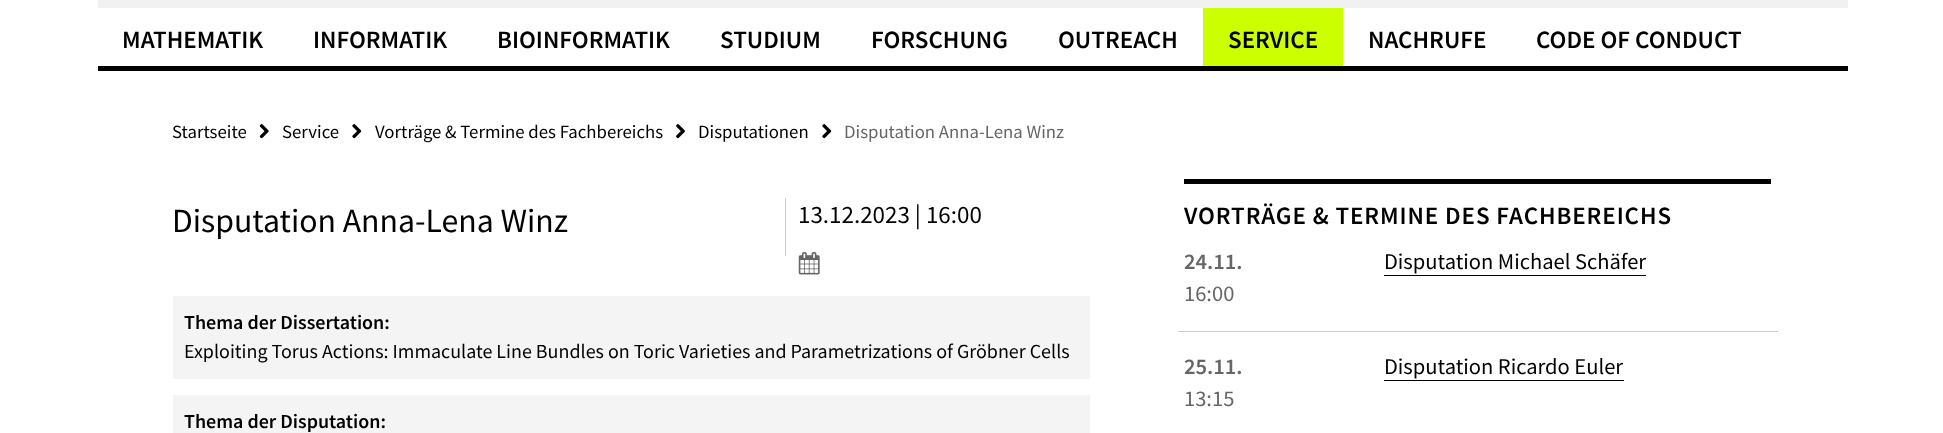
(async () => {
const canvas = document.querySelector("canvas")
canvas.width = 1943
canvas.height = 433
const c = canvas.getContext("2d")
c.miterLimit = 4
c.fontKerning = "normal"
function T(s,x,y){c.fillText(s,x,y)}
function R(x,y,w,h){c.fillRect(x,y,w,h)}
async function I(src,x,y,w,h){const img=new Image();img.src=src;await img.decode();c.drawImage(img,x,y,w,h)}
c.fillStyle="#fff"
R(0,0,1943,433)
c.fillStyle="#f1f1f1"
R(98,0,1750,8)
c.fillStyle="#000"
R(98,66,1750,5)
c.font="600 25px Source Sans Pro"
T("MATHEMATIK",122,48)
T("INFORMATIK",313,48)
T("BIOINFORMATIK",497,48)
T("STUDIUM",720,48)
T("FORSCHUNG",871,48)
T("OUTREACH",1058,48)
c.fillStyle="#cf0"
R(1203,8,140,58)
c.fillStyle="#000"
T("SERVICE",1228,48)
T("NACHRUFE",1368,48)
T("CODE OF CONDUCT",1536,48)
c.font="18.75px Source Sans Pro"
T("Startseite",172,138)
await I("1.png",259,124,10,15)
T("Service",282,138)
await I("2.png",352,124,10,15)
T("Vorträge & Termine des Fachbereichs",375,138)
await I("3.png",676,124,9,15)
T("Disputationen",698,138)
await I("2.png",822,124,10,15)
c.fillStyle="#666"
T("Disputation Anna-Lena Winz",844,138)
c.fillStyle="#ccc"
R(785,198,1,58)
c.font="33.75px Source Sans Pro"
c.fillStyle="#000"
T("Disputation Anna-Lena Winz",172,232)
c.font="25px Source Sans Pro"
T("13.12.2023 | 16:00",798,223)
await I("4.png",798,251,22,24)
c.fillStyle="#f4f4f4"
R(173,296,917,83)
c.font="600 20px Source Sans Pro"
c.fillStyle="#000"
T("Thema der Dissertation:",184,329)
c.font="20px Source Sans Pro"
T("Exploiting Torus Actions: Immaculate Line Bundles on Toric Varieties and Parametrizations of Gröbner Cells",184,358)
c.fillStyle="#f4f4f4"
R(173,395,917,38)
c.font="600 20px Source Sans Pro"
c.fillStyle="#000"
T("Thema der Disputation:",184,428)
R(1184,179,587,5)
c.letterSpacing="0.9px"
c.font="600 25px Source Sans Pro"
T("VORTRÄGE & TERMINE DES FACHBEREICHS",1184,224)
c.fillStyle="#ccc"
R(1178,331,600,1)
c.letterSpacing="0px"
c.font="600 22.5px Source Sans Pro"
c.fillStyle="#666"
T("24.11.",1184,269)
c.font="22.5px Source Sans Pro"
T("16:00",1184,301)
c.fillStyle="#000"
T("Disputation Michael Schäfer",1384,269)
R(1384,275,262,1)
c.font="600 22.5px Source Sans Pro"
c.fillStyle="#666"
T("25.11.",1184,374)
c.font="22.5px Source Sans Pro"
T("13:15",1184,406)
c.fillStyle="#000"
T("Disputation Ricardo Euler",1384,374)
R(1384,380,240,1)
})()
